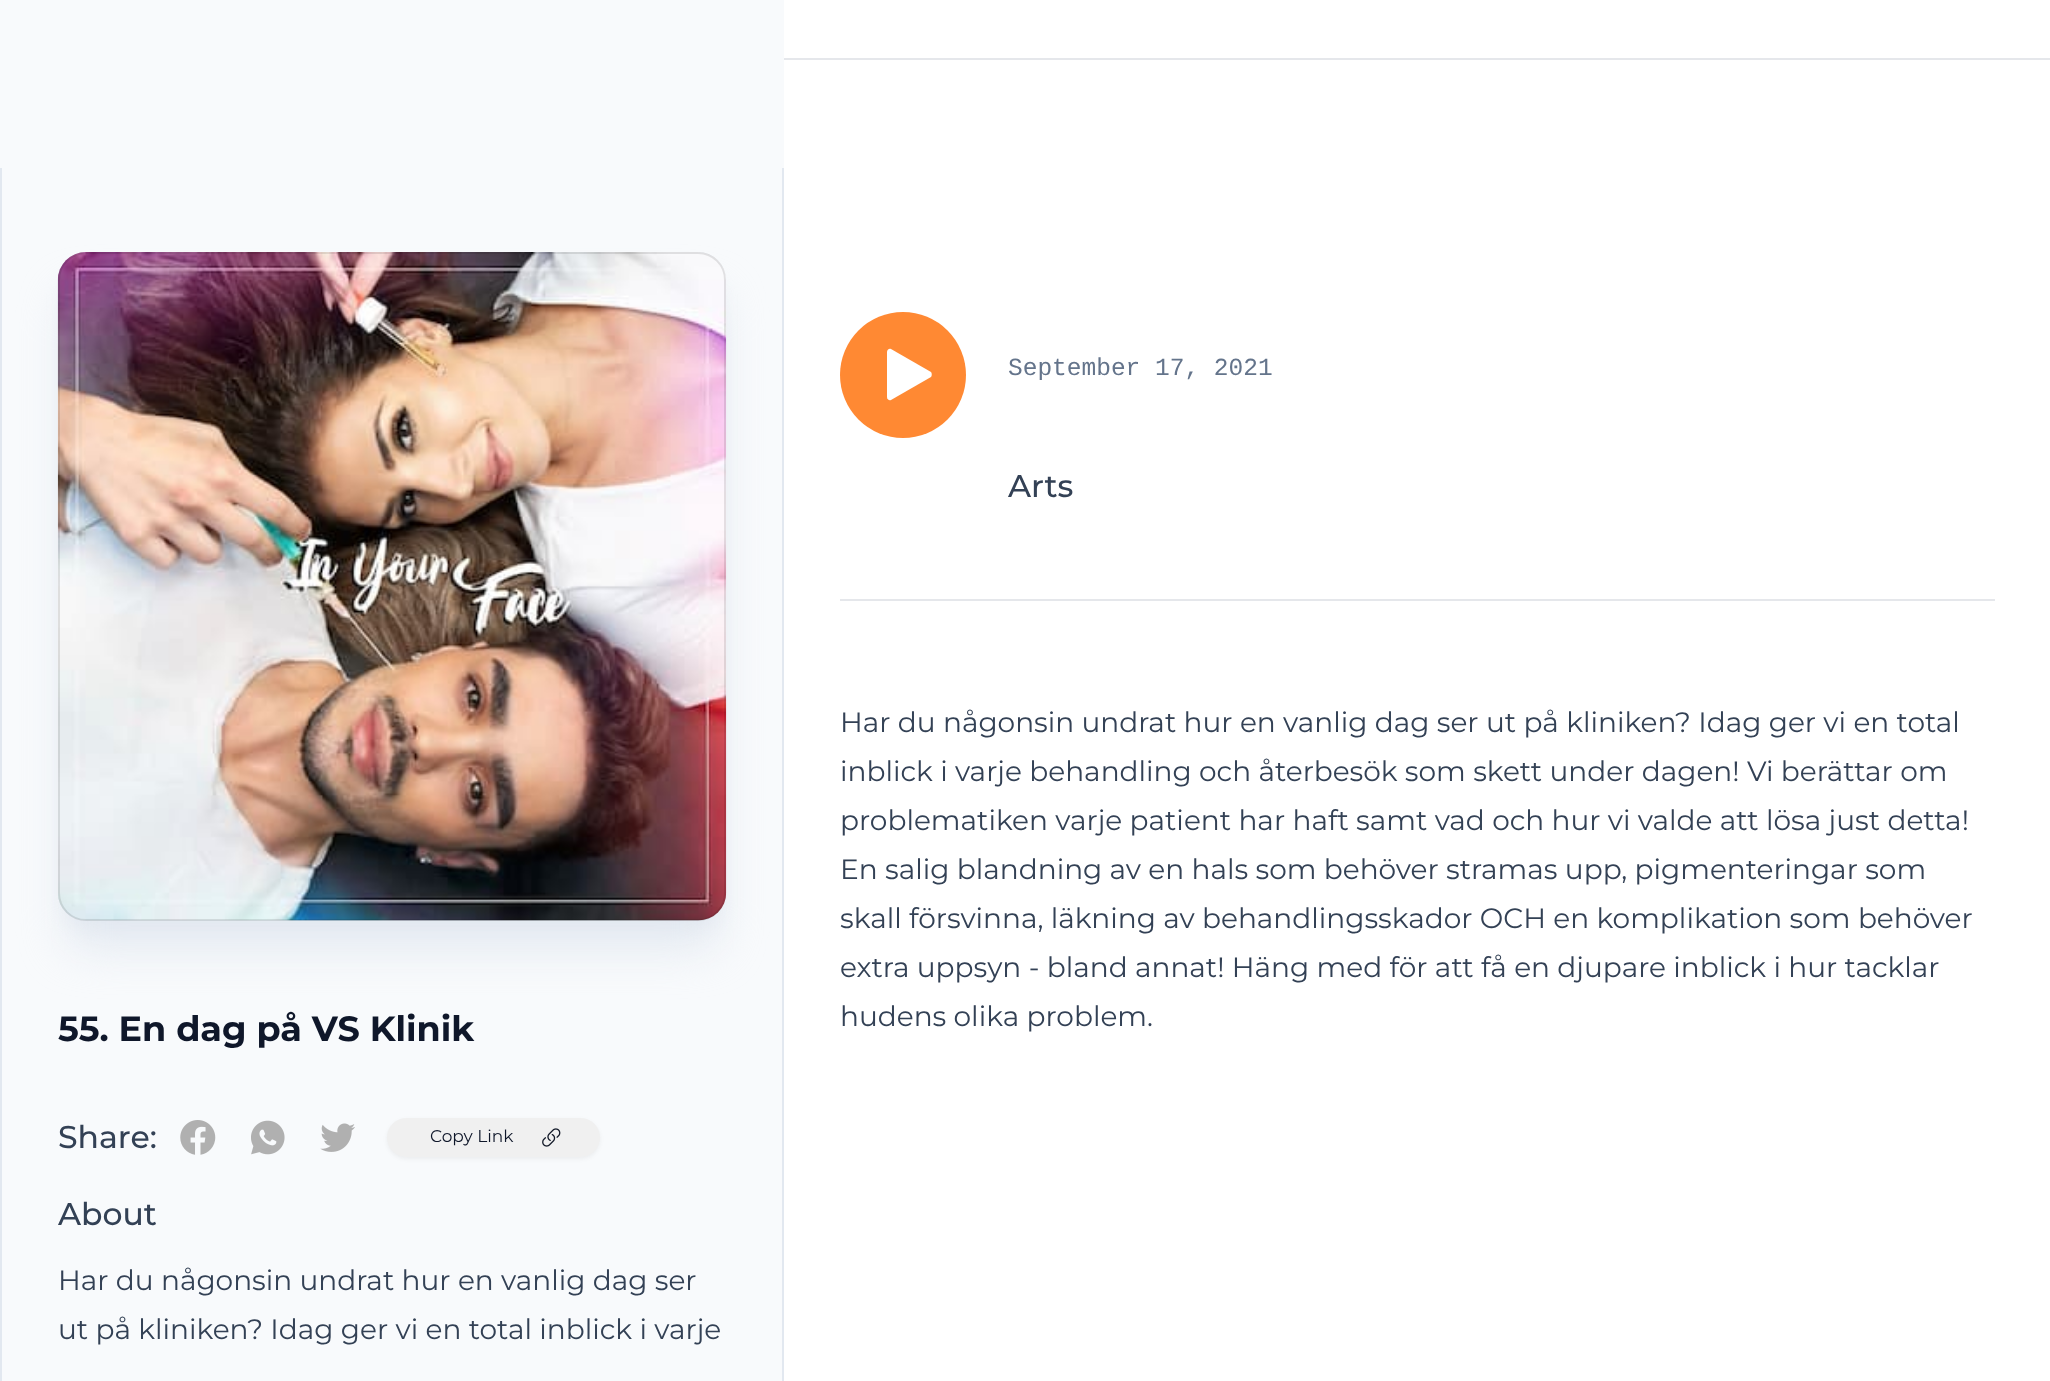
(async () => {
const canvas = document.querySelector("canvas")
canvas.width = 2050
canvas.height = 1381
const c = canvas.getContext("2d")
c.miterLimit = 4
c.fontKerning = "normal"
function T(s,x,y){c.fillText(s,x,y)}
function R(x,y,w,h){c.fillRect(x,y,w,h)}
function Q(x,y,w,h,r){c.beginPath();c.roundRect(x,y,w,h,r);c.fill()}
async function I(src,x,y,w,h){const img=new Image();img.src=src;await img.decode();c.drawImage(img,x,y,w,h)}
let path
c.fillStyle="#fff"
R(0,0,2050,1381)
c.fillStyle="#e5e7eb"
R(784,58,1266,2)
c.fillStyle="#ff8933"
c.beginPath()
c.arc(903,375,63,0,7)
c.fill()
c.fillStyle="#fff"
path = new Path2D("M931 372c1 1 1 4 0 5l-40 23c-2 1-4-1-4-3v-45c0-2 2-4 4-3z")
c.fill(path)
c.font="24.5px Liberation Mono"
c.fillStyle="#64748b"
T("September 17, 2021",1008,375)
c.font="500 31.5px Montserrat"
c.fillStyle="#334155"
T("Arts",1008,497)
c.fillStyle="#e5e7eb"
R(840,599,1155,2)
c.font="28px Montserrat"
c.fillStyle="#334155"
T("Har du någonsin undrat hur en vanlig dag ser ut på kliniken? Idag ger vi en total",840,732)
T("inblick i varje behandling och återbesök som skett under dagen! Vi berättar om",840,781)
T("problematiken varje patient har haft samt vad och hur vi valde att lösa just detta!",840,830)
T("En salig blandning av en hals som behöver stramas upp, pigmenteringar som",840,879)
T("skall försvinna, läkning av behandlingsskador OCH en komplikation som behöver",840,928)
T("extra uppsyn - bland annat! Häng med för att få en djupare inblick i hur tacklar",840,977)
T("hudens olika problem.",840,1026)
c.fillStyle="#f8fafc"
R(0,0,784,1381)
c.fillStyle="#e2e8f0"
R(782,168,2,1213)
R(0,168,2,1213)
c.filter="blur(9px)"
c.beginPath()
c.roundRect(68,277,648,647,18)
c.fill()
c.filter="none"
c.filter="blur(22px)"
c.beginPath()
c.roundRect(67,296,651,651,19)
c.fill()
c.filter="none"
Q(58,252,668,669,28)
await I("1.png",57,252,670,669)
c.beginPath()
c.roundRect(59,253,666,667,27)
c.strokeStyle="#0000001a"
c.lineWidth=2
c.stroke()
c.font="bold 35px Montserrat"
c.fillStyle="#0f172a"
T("55. En dag på VS Klinik",58,1041)
c.font="500 31.5px Montserrat"
c.fillStyle="#334155"
T("Share:",58,1148)
await I("2.png",180,1120,36,35)
await I("3.png",251,1120,34,35)
await I("4.png",320,1123,35,29)
c.fillStyle="#0000000d"
c.filter="blur(2px)"
c.beginPath()
c.roundRect(387,1120,213,39,19.5)
c.fill()
c.filter="none"
c.fillStyle="#f0f0f0"
Q(387,1118,213,39,19.5)
c.font="17px Montserrat"
c.fillStyle="#0f172a"
T("Copy Link",430,1142)
await I("5.png",542,1128,19,19)
c.font="500 31.5px Montserrat"
c.fillStyle="#334155"
T("About",58,1225)
c.font="28px Montserrat"
T("Har du någonsin undrat hur en vanlig dag ser",58,1290)
T("ut på kliniken? Idag ger vi en total inblick i varje",58,1339)
})()
